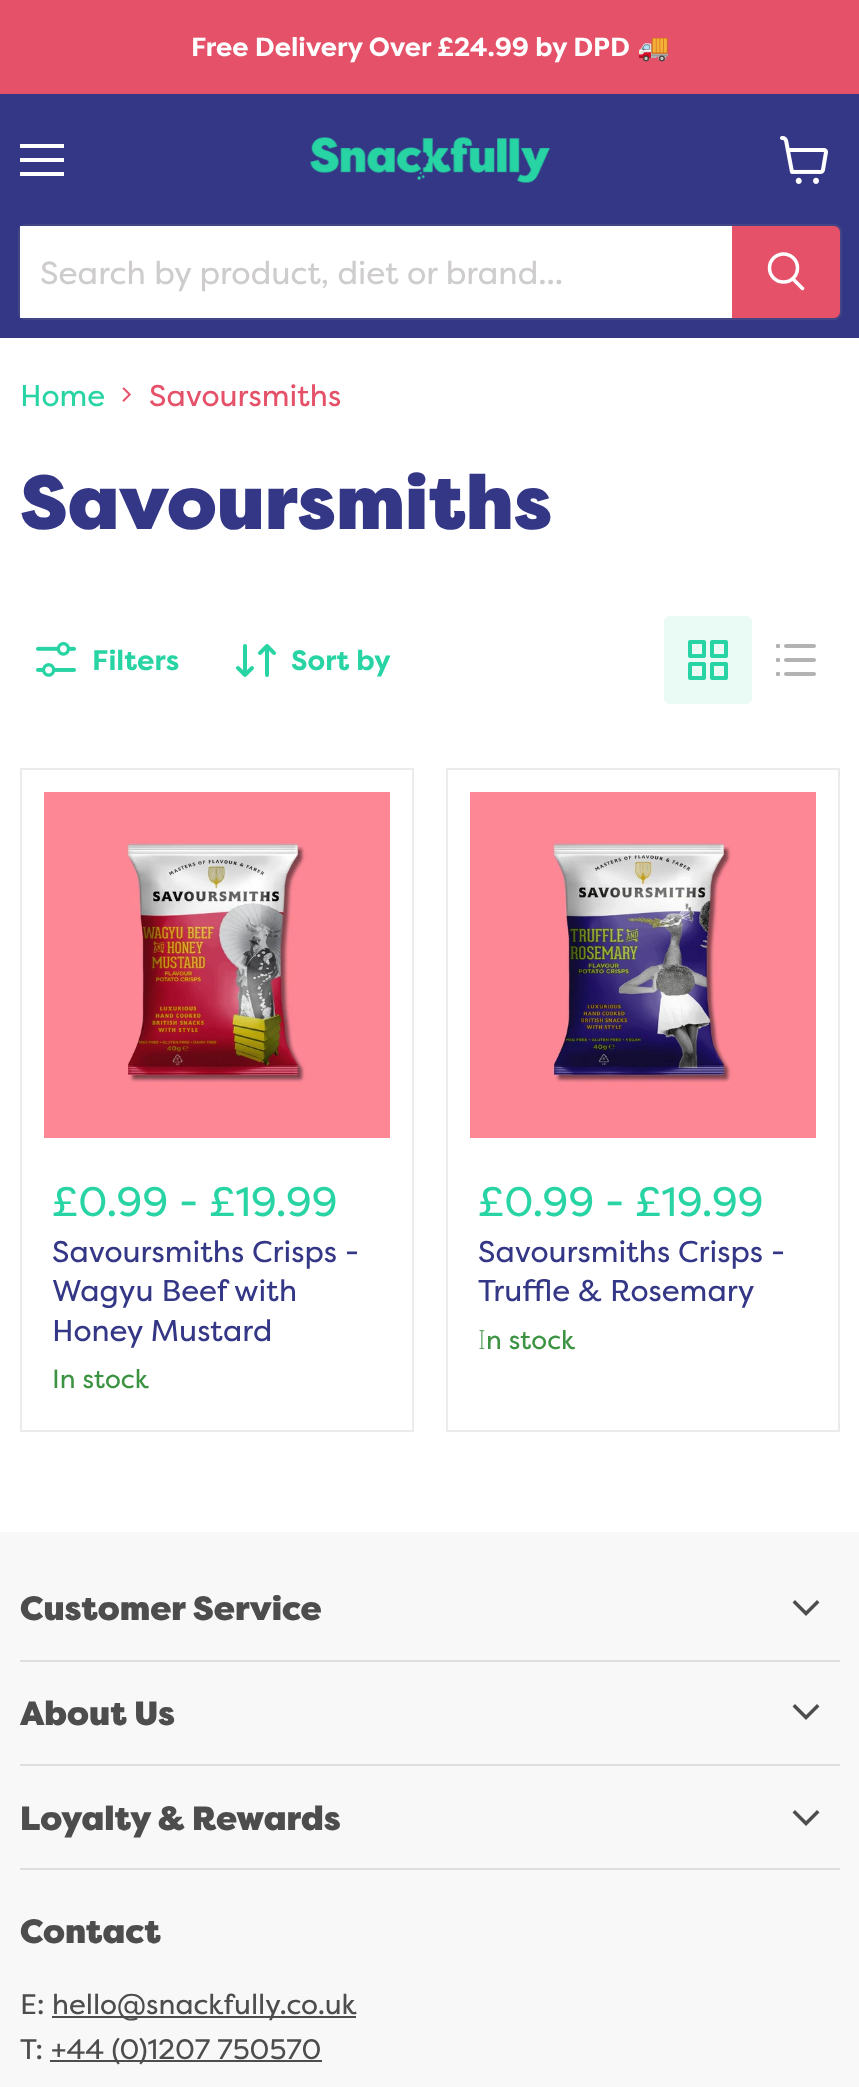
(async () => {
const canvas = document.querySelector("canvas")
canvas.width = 859
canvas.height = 2087
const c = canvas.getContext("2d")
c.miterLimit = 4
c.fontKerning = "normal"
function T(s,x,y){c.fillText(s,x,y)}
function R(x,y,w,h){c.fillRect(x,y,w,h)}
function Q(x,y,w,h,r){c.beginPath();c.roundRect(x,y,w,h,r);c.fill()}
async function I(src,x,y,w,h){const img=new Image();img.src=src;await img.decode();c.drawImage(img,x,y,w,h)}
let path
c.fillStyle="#fff"
R(0,0,859,2087)
c.fillStyle="#e45169"
R(0,0,859,94)
c.font="bold 26.25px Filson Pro"
c.fillStyle="#fff"
T("Free Delivery Over £24.99 by DPD",191,56)
c.font="bold 26.25px Noto Color Emoji"
T("🚚",637,56)
c.fillStyle="#343686"
R(0,94,859,244)
c.fillStyle="#fff"
R(20,144,44,4)
R(20,158,44,4)
R(20,172,44,4)
await I("1.png",780,136,48,48)
await I("2.png",310,137,241,46)
c.beginPath()
c.roundRect(19,225,822,94,7)
c.strokeStyle="#80808033"
c.lineWidth=2
c.stroke()
R(20,226,712,92)
c.font="32px Filson Pro"
c.fillStyle="#cfcccd"
T("Search by product, diet or brand...",40,284)
c.fillStyle="#e45169"
c.beginPath()
c.roundRect(733,227,106,90,[0,5,5,0])
c.fill()
c.strokeStyle="#e45169"
c.stroke()
path = new Path2D("M802.5 288.5l-9.5-9.5")
c.strokeStyle="#fff"
c.lineWidth=3.5
c.lineCap="round"
c.stroke(path)
c.beginPath()
c.arc(783.5,268,14,0,7)
c.stroke()
c.font="30px Filson Pro"
c.fillStyle="#28d4a3"
T("Home",20,406)
await I("3.png",122,387,9,15)
c.fillStyle="#e45169"
T("Savoursmiths",149,406)
c.font="900 76.5px Filson Pro"
c.fillStyle="#343686"
T("Savoursmiths",20,529)
await I("4.png",36,642,40,35)
c.font="bold 28.1px Filson Pro"
c.fillStyle="#28d4a3"
T("Filters",92,670)
await I("5.png",236,644,40,33)
T("Sort by",291,670)
c.fillStyle="#eafbf6"
Q(664,616,88,88,6)
await I("6.png",688,640,40,40)
await I("7.png",776,644,40,32)
c.strokeStyle="#ebebeb"
c.lineWidth=2
c.strokeRect(21,769,392,662)
await I("8.png",44,792,346,346)
c.font="41.25px Filson Pro"
c.fillStyle="#28d4a3"
T("£0.99 - £19.99",52,1216)
c.font="30px Filson Pro"
c.fillStyle="#343686"
T("Savoursmiths Crisps -",52,1262)
T("Wagyu Beef with",52,1301)
T("Honey Mustard",52,1341)
c.font="26.25px Filson Pro"
c.fillStyle="#3c9342"
T("In stock",52,1388)
c.strokeRect(447,769,392,662)
await I("9.png",470,792,346,346)
c.font="41.25px Filson Pro"
c.fillStyle="#28d4a3"
T("£0.99 - £19.99",478,1216)
c.font="30px Filson Pro"
c.fillStyle="#343686"
T("Savoursmiths Crisps -",478,1262)
T("Truffle & Rosemary",478,1301)
c.font="200 26.25px Noto Sans"
c.fillStyle="#3c9342"
T("I",478,1349)
c.font="26.25px Filson Pro"
T("n stock",486,1349)
c.fillStyle="#f8f8f8"
R(0,1532,859,555)
c.fillStyle="#dedede"
R(20,1660,820,2)
c.font="900 33.75px Filson Pro"
c.fillStyle="#4d4d4d"
T("Customer Service",20,1620)
path = new Path2D("M806 1613.5l11-11m-11 11l-11-11")
c.strokeStyle="#4d4d4d"
c.lineWidth=3.5
c.lineCap="square"
c.stroke(path)
c.fillStyle="#dedede"
R(20,1764,820,2)
c.fillStyle="#4d4d4d"
T("About Us",20,1725)
path = new Path2D("M806 1717.5l11-11m-11 11l-11-11")
c.stroke(path)
c.fillStyle="#dedede"
R(20,1868,820,2)
c.fillStyle="#4d4d4d"
T("Loyalty & Rewards",20,1830)
path = new Path2D("M806 1823.5l11-11m-11 11l-11-11")
c.stroke(path)
T("Contact",20,1943)
c.font="28.1px Filson Pro"
T("E:",20,2014)
R(52,2016,304,2)
T("hello@snackfully.co.uk",52,2014)
T("T:",20,2059)
R(50,2060,272,2)
T("+44 (0)1207 750570",51,2059)
})()
